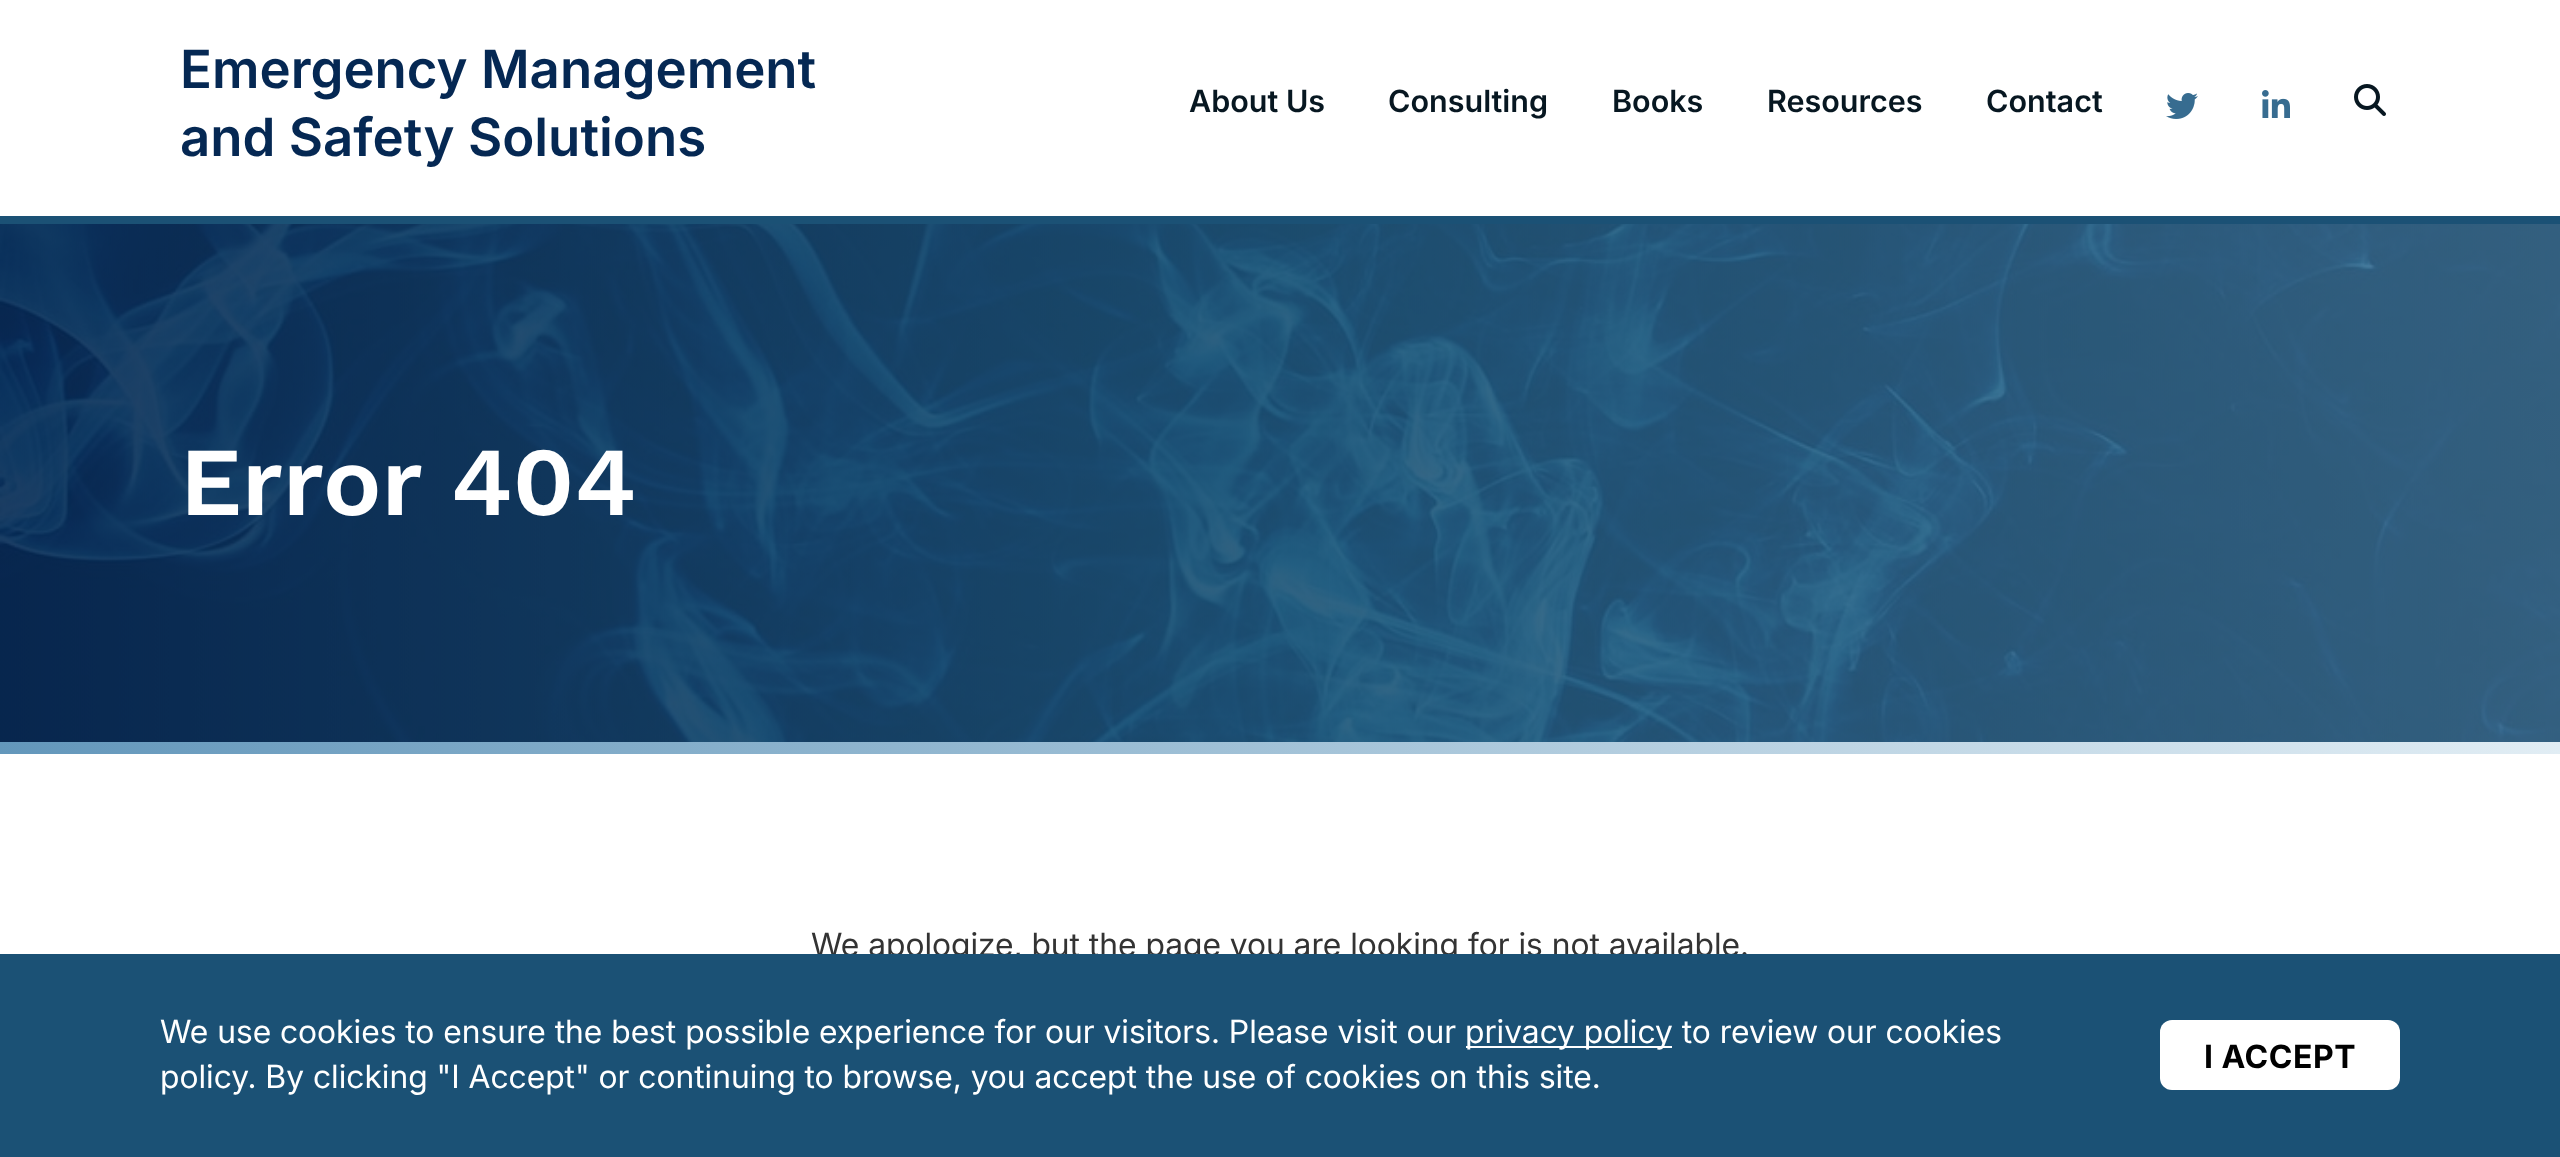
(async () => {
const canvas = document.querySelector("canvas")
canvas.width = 2560
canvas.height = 1157
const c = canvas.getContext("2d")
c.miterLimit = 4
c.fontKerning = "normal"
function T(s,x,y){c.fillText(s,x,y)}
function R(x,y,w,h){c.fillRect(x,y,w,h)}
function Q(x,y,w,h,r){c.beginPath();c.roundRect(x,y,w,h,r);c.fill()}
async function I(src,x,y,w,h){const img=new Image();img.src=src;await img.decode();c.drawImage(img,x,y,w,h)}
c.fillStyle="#fff"
R(0,0,2560,1157)
c.fillStyle="#1b5175"
R(0,216,2560,8)
c.font="600 52.75px Inter"
c.fillStyle="#052853"
T("Emergency Management",180,88)
T("and Safety Solutions",180,156)
c.font="600 30.5px Inter"
c.fillStyle="#071721"
T("About Us",1189,112)
T("Consulting",1388,112)
T("Books",1612,112)
T("Resources",1767,112)
T("Contact",1986,112)
await I("1.png",2166,93,32,26)
await I("2.png",2262,90,28,28)
await I("3.png",2354,84,32,32)
await I("4.png",0,224,2560,518)
await I("5.png",0,742,2560,12)
c.font="600 97.5px Work Sans"
c.fillStyle="#fff"
T("Error 404",180,515)
c.font="32px Inter"
c.fillStyle="#333"
T("We apologize, but the page you are looking for is not available.",811,956)
c.fillStyle="#1b5175"
R(0,954,2560,203)
c.fillStyle="#fff"
T("We use cookies to ensure the best possible experience for our visitors. Please visit our",160,1043)
R(1466,1046,206,2)
T("privacy policy to review our cookies",1465,1043)
T("policy. By clicking \"I Accept\" or continuing to browse, you accept the use of cookies on this site.",160,1088)
Q(2160,1020,240,70,12)
c.letterSpacing="0.5px"
c.font="bold 32px Inter"
c.fillStyle="#000"
T("I ACCEPT",2204,1068)
})()
